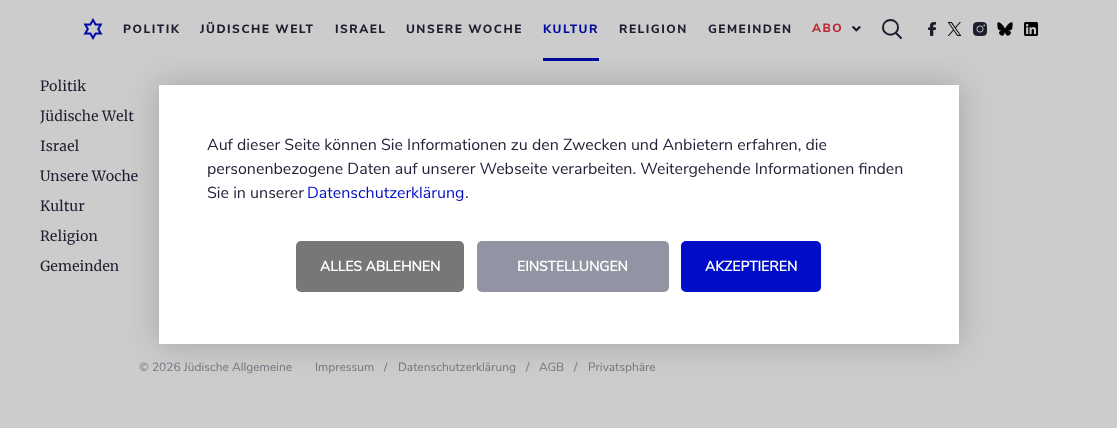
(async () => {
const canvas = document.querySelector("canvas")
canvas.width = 1117
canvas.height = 428
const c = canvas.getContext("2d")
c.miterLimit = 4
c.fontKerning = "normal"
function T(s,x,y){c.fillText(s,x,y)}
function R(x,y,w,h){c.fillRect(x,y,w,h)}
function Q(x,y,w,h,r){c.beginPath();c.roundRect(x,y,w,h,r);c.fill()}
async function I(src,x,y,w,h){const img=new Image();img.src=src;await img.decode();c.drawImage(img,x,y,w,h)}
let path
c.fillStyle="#ccc"
R(0,0,1117,428)
await I("1.png",83,18,20,22)
c.letterSpacing="1.5px"
c.font="800 12px Nunito Sans"
c.fillStyle="#1c1d2e"
T("POLITIK",123,33)
T("JÜDISCHE WELT",200,33)
T("ISRAEL",335,33)
T("UNSERE WOCHE",406,33)
c.fillStyle="#000b9f"
T("KULTUR",543,33)
R(543,58,56,3)
c.fillStyle="#1c1d2e"
T("RELIGION",619,33)
T("GEMEINDEN",708,33)
c.fillStyle="#be2a3a"
T("ABO",812,32)
await I("2.png",852,26,9,6)
path = new Path2D("M898 27.5c0-10-15-10-15 0c0 9.5 15 9.5 15 0z")
c.strokeStyle="#1c1d2e"
c.lineWidth=2
c.stroke(path)
path = new Path2D("M896.5 33.5l4.5 4.5")
c.lineCap="round"
c.stroke(path)
await I("3.png",928,22,8,14)
await I("4.png",947,22,15,14)
await I("5.png",973,22,14,14)
await I("6.png",997,22,16,14)
await I("7.png",1024,22,14,14)
c.letterSpacing="0px"
c.font="14px Merriweather"
c.fillStyle="#1c1d2e"
T("Politik",40,91)
T("Jüdische Welt",40,121)
T("Israel",40,151)
T("Unsere Woche",40,181)
T("Kultur",40,211)
T("Religion",40,241)
T("Gemeinden",40,271)
c.font="12px Nunito Sans"
c.fillStyle="#767682"
T("© 2026 Jüdische Allgemeine",139,371)
T("Impressum",315,371)
T("/",384,371)
T("Datenschutzerklärung",398,371)
T("/",526,371)
T("AGB",539,371)
T("/",574,371)
T("Privatsphäre",588,371)
c.fillStyle="#00000033"
c.filter="blur(16px)"
c.beginPath()
c.rect(159,85,800,259)
c.fill()
c.filter="none"
c.fillStyle="#fff"
R(159,85,800,259)
c.font="16px Nunito Sans"
c.fillStyle="#23243a"
T("Auf dieser Seite können Sie Informationen zu den Zwecken und Anbietern erfahren, die",207,150)
T("personenbezogene Daten auf unserer Webseite verarbeiten. Weitergehende Informationen finden",207,174)
T("Sie in unserer",207,198)
c.fillStyle="#000ec7"
T("Datenschutzerklärung",307,198)
c.fillStyle="#23243a"
T(".",465,198)
c.fillStyle="#777"
Q(296,241,168,51,5)
c.font="bold 14px Nunito Sans"
c.fillStyle="#fff"
T("ALLES ABLEHNEN",320,271)
c.fillStyle="#9394a3"
Q(477,241,192,51,5)
c.fillStyle="#fff"
T("EINSTELLUNGEN",517,271)
c.fillStyle="#000ec7"
Q(681,241,140,51,5)
c.fillStyle="#fff"
T("AKZEPTIEREN",705,271)
})()
